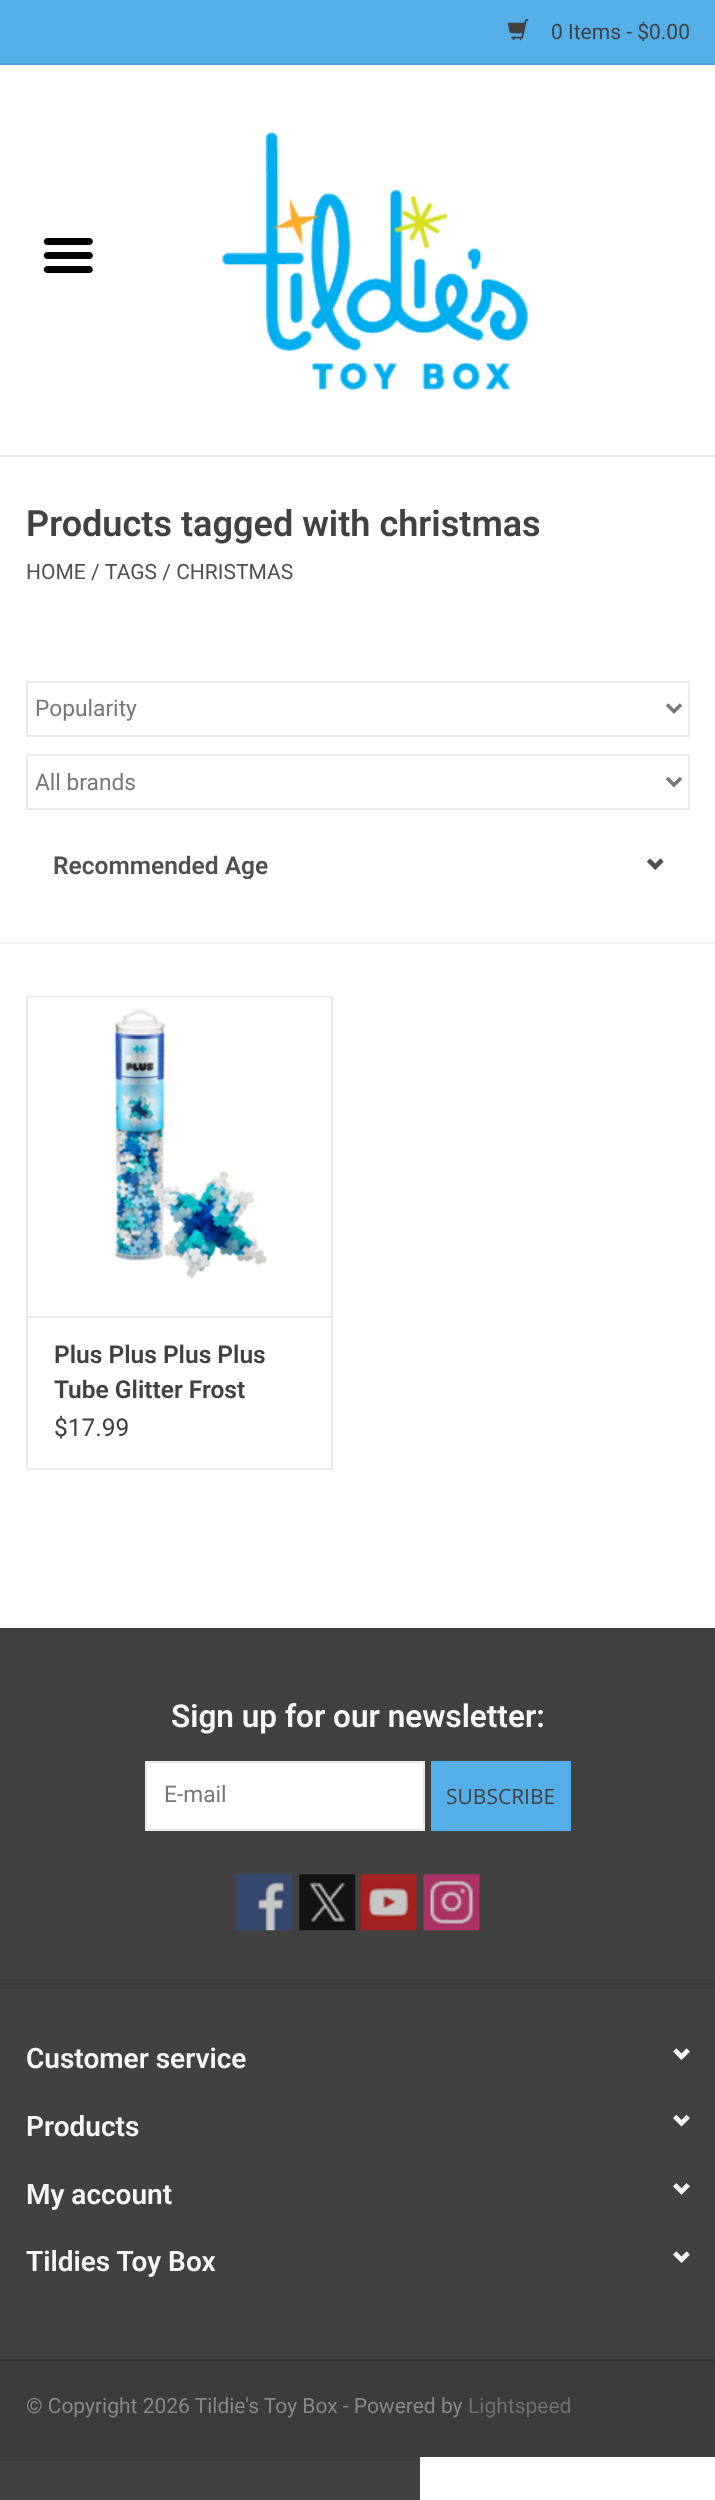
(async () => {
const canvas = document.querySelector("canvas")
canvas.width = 715
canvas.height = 2500
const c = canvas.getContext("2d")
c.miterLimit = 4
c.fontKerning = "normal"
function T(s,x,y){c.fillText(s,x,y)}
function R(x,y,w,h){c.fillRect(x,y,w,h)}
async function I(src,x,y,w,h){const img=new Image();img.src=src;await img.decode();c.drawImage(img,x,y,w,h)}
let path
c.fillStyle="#fff"
R(0,0,715,2500)
c.fillStyle="#54afe9"
R(0,0,715,63)
c.fillStyle="#4ea2d8"
R(0,63,715,2)
await I("1.png",507,19,22,22)
c.font="21px Roboto"
c.fillStyle="#414141"
T("0 Items - $0.00",551,39)
c.fillStyle="#eaeaea"
R(0,455,715,2)
await I("2.png",221,131,307,260)
await I("3.png",43,238,50,35)
c.fillStyle="#414141"
R(0,2457,420,43)
c.font="600 36.1px Roboto"
T("Products tagged with christmas",26,536)
c.font="21px Roboto"
c.fillStyle="#505050"
T("HOME /",26,579)
T("TAGS / CHRISTMAS",105,579)
c.fillStyle="#f0f0f0"
R(0,942,715,2)
c.strokeStyle="#eaeaea"
c.lineWidth=2
c.strokeRect(27,682,662,54)
path = new Path2D("M667 704.5l7 7l7-7")
c.strokeStyle="#777"
c.lineWidth=3.5
c.stroke(path)
c.font="22.75px Roboto"
c.fillStyle="#777"
T("Popularity",35,716)
c.strokeStyle="#eaeaea"
c.lineWidth=2
c.strokeRect(27,755,662,54)
path = new Path2D("M667 778l7 7l7-7")
c.strokeStyle="#777"
c.lineWidth=3.5
c.stroke(path)
T("All brands",35,790)
c.font="600 24.5px Roboto"
c.fillStyle="#505050"
T("Recommended Age",53,874)
await I("4.png",646,858,18,12)
c.fillStyle="#eaeaea"
R(26,996,307,2)
R(331,996,2,320)
R(26,996,2,320)
await I("5.png",28,997,303,319)
c.strokeStyle="#eaeaea"
c.lineWidth=2
c.strokeRect(27,1317,305,152)
c.fillStyle="#414141"
T("Plus Plus Plus Plus",54,1363)
T("Tube Glitter Frost",54,1398)
c.font="24.5px Roboto"
T("$17.99",54,1436)
R(0,1630,715,729)
c.fillStyle="#3b3b3b"
R(0,1628,715,2)
c.font="600 31.5px Roboto"
c.fillStyle="#f7f7f7"
T("Sign up for our newsletter:",171,1727)
c.fillStyle="#fff"
c.beginPath()
c.rect(146,1762,278,68)
c.fill()
c.strokeStyle="#e9e9e9"
c.stroke()
c.font="22.75px Roboto"
c.fillStyle="#777"
T("E-mail",164,1802)
c.fillStyle="#54afe9"
R(431,1761,140,70)
c.font="21px Open Sans"
c.fillStyle="#414141"
T("SUBSCRIBE",446,1804)
await I("6.png",236,1874,57,57)
await I("7.png",299,1874,57,57)
await I("8.png",360,1874,57,57)
await I("9.png",423,1874,57,57)
c.fillStyle="#3b3b3b"
R(0,1983,715,2)
c.font="600 28px Roboto"
c.fillStyle="#f7f7f7"
T("Customer service",26,2068)
await I("10.png",673,2048,17,12)
T("Products",26,2136)
await I("11.png",673,2114,17,13)
T("My account",26,2204)
await I("12.png",673,2183,17,12)
T("Tildies Toy Box",26,2271)
await I("10.png",673,2251,17,12)
c.fillStyle="#373737"
R(0,2359,715,2)
c.fillStyle="#3c3c3c"
R(0,2361,715,96)
c.font="21px Roboto"
c.fillStyle="#878787"
T("© Copyright 2026 Tildie's Toy Box - Powered by",26,2413)
c.fillStyle="#707070"
T("Lightspeed",468,2413)
})()
